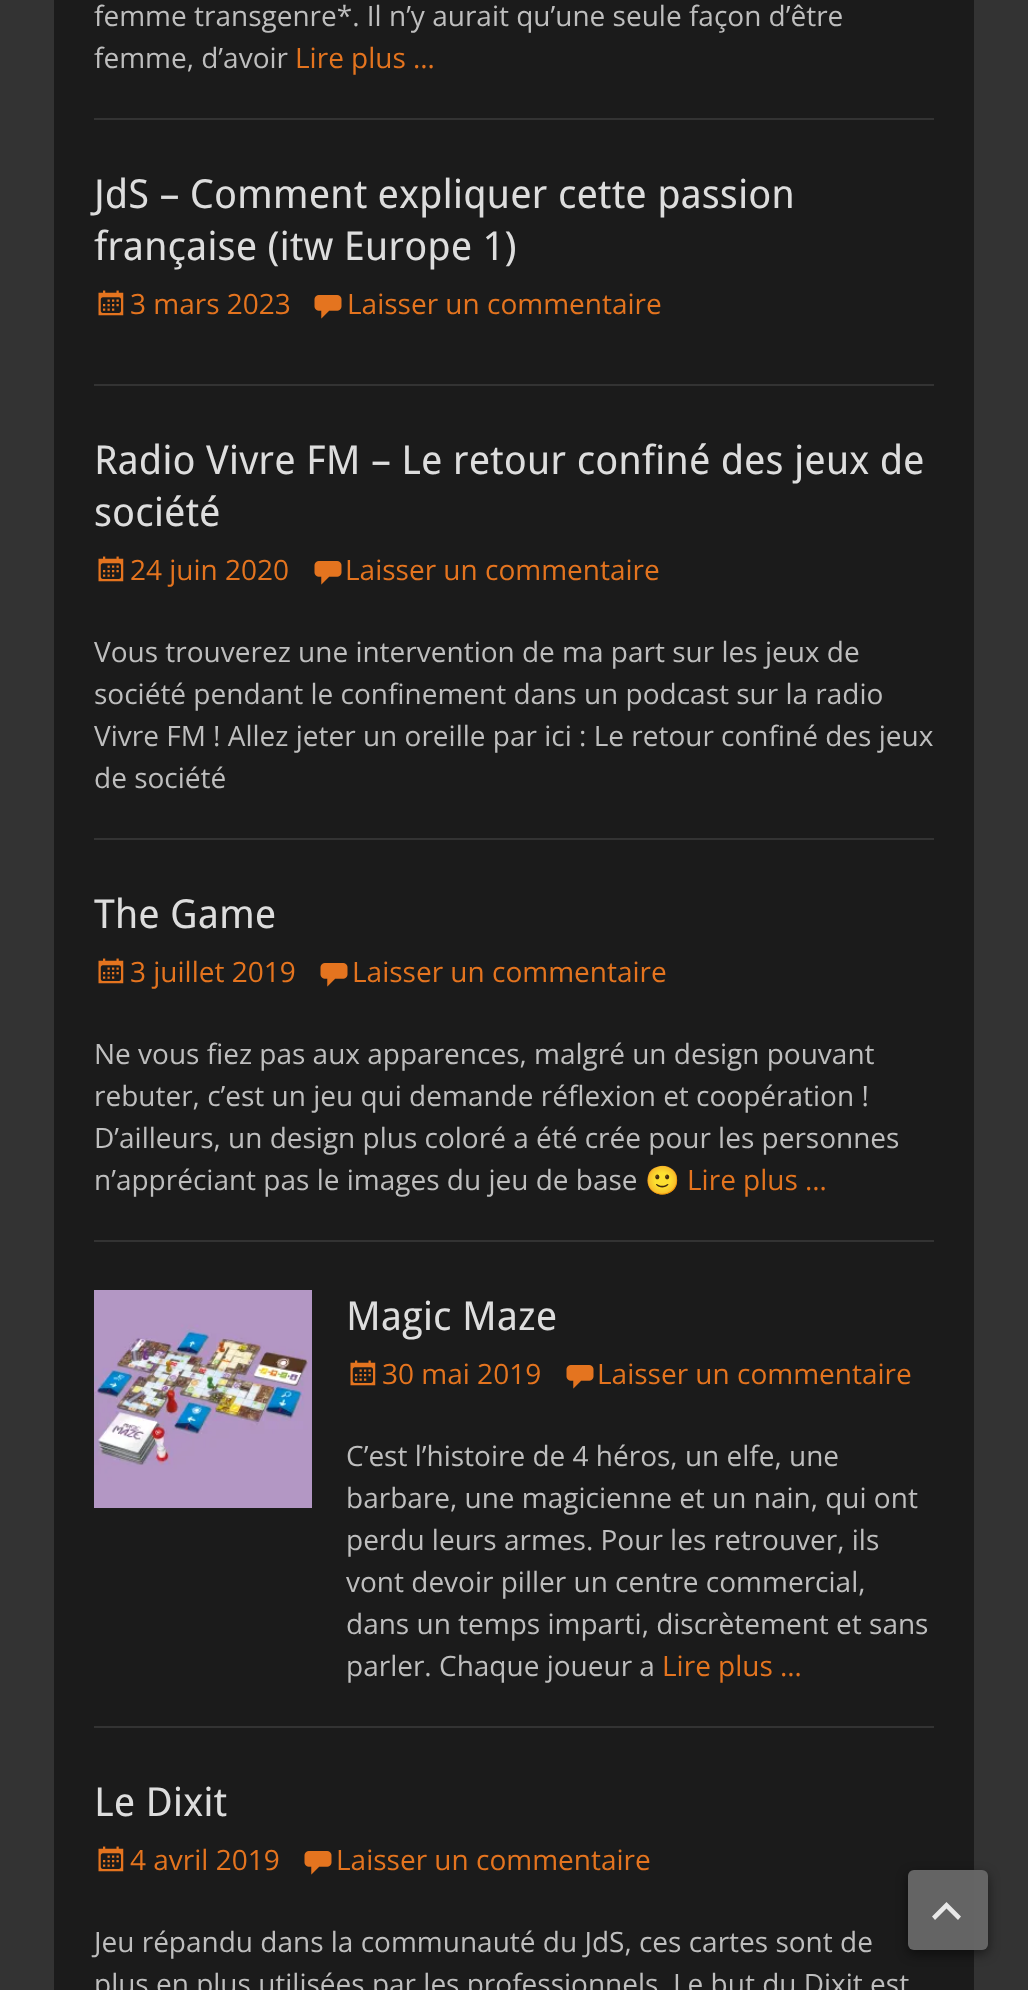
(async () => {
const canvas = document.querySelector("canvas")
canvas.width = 1028
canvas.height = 1990
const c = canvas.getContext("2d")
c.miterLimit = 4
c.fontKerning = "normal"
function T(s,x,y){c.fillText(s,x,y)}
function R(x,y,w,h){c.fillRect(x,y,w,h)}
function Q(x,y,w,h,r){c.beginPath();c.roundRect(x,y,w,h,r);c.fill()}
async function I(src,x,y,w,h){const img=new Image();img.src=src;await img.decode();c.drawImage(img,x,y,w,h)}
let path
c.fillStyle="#333"
R(0,0,1028,1990)
c.fillStyle="#1b1b1b"
R(54,0,920,1990)
c.fillStyle="#333"
R(94,118,840,2)
c.font="28px Open Sans"
c.fillStyle="#bebebe"
T("femme transgenre*. Il n’y aurait qu’une seule façon d’être",94,26)
T("femme, d’avoir",94,68)
c.fillStyle="#e4741f"
T("Lire plus …",295,68)
c.fillStyle="#333"
R(94,384,840,2)
c.font="40px Droid Sans"
c.fillStyle="#ddd"
T("JdS – Comment expliquer cette passion",94,208)
T("française (itw Europe 1)",94,260)
await I("1.png",98,290,26,26)
c.font="28px Open Sans"
c.fillStyle="#e4741f"
T("3 mars 2023",130,314)
await I("2.png",314,295,28,24)
T("Laisser un commentaire",347,314)
c.fillStyle="#333"
R(94,838,840,2)
c.font="40px Droid Sans"
c.fillStyle="#ddd"
T("Radio Vivre FM – Le retour confiné des jeux de",94,474)
T("société",94,526)
await I("1.png",98,556,26,26)
c.font="28px Open Sans"
c.fillStyle="#e4741f"
T("24 juin 2020",130,580)
await I("2.png",314,561,28,24)
T("Laisser un commentaire",345,580)
c.fillStyle="#bebebe"
T("Vous trouverez une intervention de ma part sur les jeux de",94,662)
T("société pendant le confinement dans un podcast sur la radio",94,704)
T("Vivre FM ! Allez jeter un oreille par ici : Le retour confiné des jeux",94,746)
T("de société",94,788)
c.fillStyle="#333"
R(94,1240,840,2)
c.font="40px Droid Sans"
c.fillStyle="#ddd"
T("The Game",94,928)
await I("1.png",98,958,26,26)
c.font="28px Open Sans"
c.fillStyle="#e4741f"
T("3 juillet 2019",130,982)
await I("2.png",320,963,28,24)
T("Laisser un commentaire",352,982)
c.fillStyle="#bebebe"
T("Ne vous fiez pas aux apparences, malgré un design pouvant",94,1064)
T("rebuter, c’est un jeu qui demande réflexion et coopération !",94,1106)
T("D’ailleurs, un design plus coloré a été crée pour les personnes",94,1148)
T("n’appréciant pas le images du jeu de base",94,1190)
c.font="28px Noto Color Emoji"
T("🙂",645,1190)
c.font="28px Open Sans"
c.fillStyle="#e4741f"
T("Lire plus …",687,1190)
c.fillStyle="#333"
R(94,1726,840,2)
await I("3.png",94,1290,218,218)
c.font="40px Droid Sans"
c.fillStyle="#ddd"
T("Magic Maze",346,1330)
await I("1.png",350,1360,26,26)
c.font="28px Open Sans"
c.fillStyle="#e4741f"
T("30 mai 2019",382,1384)
await I("2.png",566,1365,28,24)
T("Laisser un commentaire",597,1384)
c.fillStyle="#bebebe"
T("C’est l’histoire de 4 héros, un elfe, une",346,1466)
T("barbare, une magicienne et un nain, qui ont",346,1508)
T("perdu leurs armes. Pour les retrouver, ils",346,1550)
T("vont devoir piller un centre commercial,",346,1592)
T("dans un temps imparti, discrètement et sans",346,1634)
T("parler. Chaque joueur a",346,1676)
c.fillStyle="#e4741f"
T("Lire plus …",662,1676)
c.font="40px Droid Sans"
c.fillStyle="#ddd"
T("Le Dixit",94,1816)
await I("1.png",98,1846,26,26)
c.font="28px Open Sans"
c.fillStyle="#e4741f"
T("4 avril 2019",130,1870)
await I("2.png",304,1851,28,24)
T("Laisser un commentaire",336,1870)
c.fillStyle="#bebebe"
T("Jeu répandu dans la communauté du JdS, ces cartes sont de",94,1952)
T("plus en plus utilisées par les professionnels. Le but du Dixit est",94,1994)
c.save()
path = new Path2D("M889 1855h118v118h-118zm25 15h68c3.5 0 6 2.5 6 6v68c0 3.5-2.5 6-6 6h-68c-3.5 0-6-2.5-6-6v-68c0-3.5 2.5-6 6-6z")
c.clip(path,"evenodd")
c.fillStyle="#0000007d"
c.filter="blur(6px)"
c.beginPath()
c.roundRect(908,1874,80,80,6)
c.fill()
c.filter="none"
c.restore()
c.fillStyle="#666666fa"
Q(908,1870,80,80,6)
c.fillStyle="#e9e9e9"
path = new Path2D("M958 1920l-11.5-11.5l-11.5 11.5l-3-3.5l14.5-14.5l14.5 14.5z")
c.fill(path)
})()
